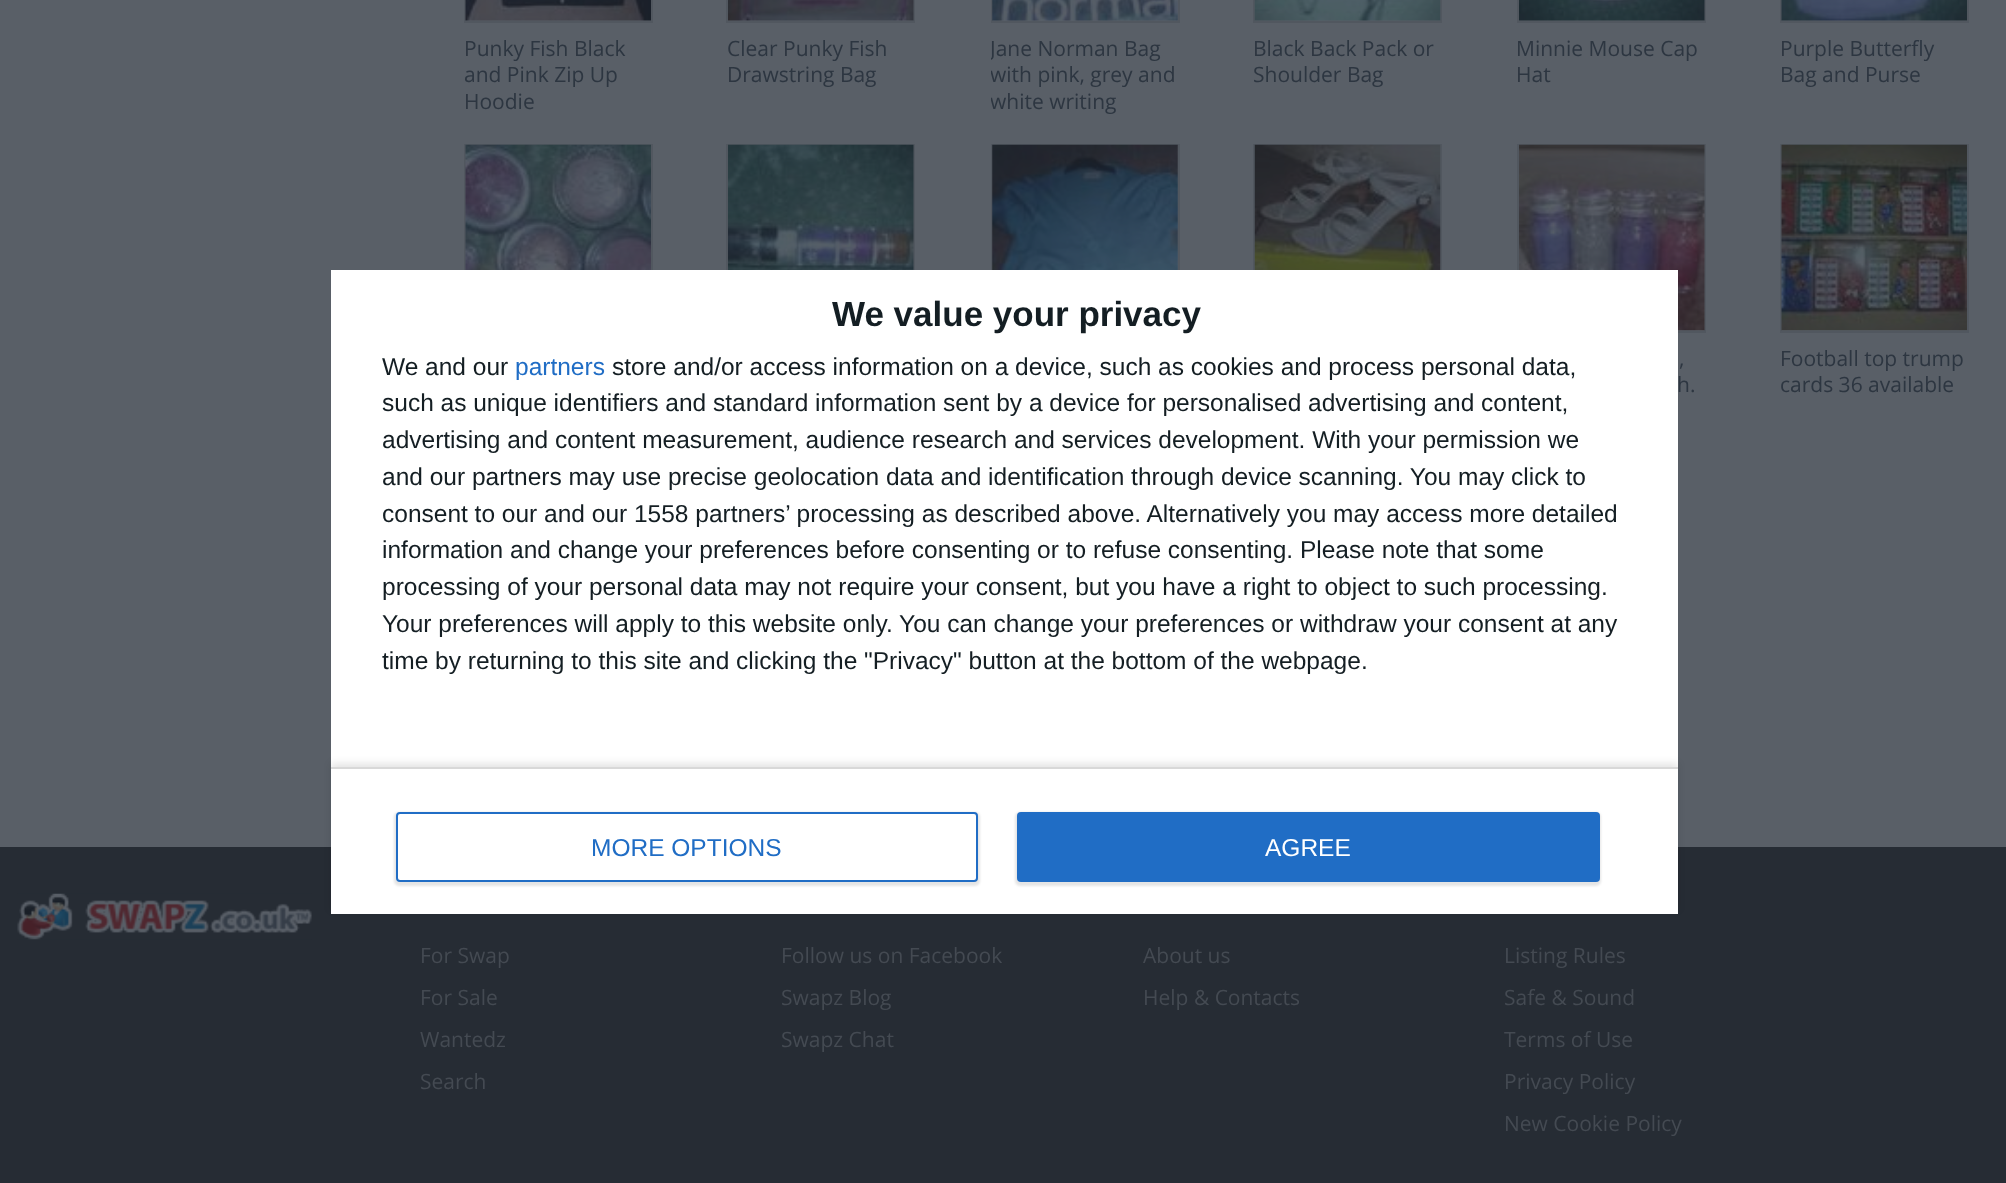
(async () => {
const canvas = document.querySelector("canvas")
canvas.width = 2006
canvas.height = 1183
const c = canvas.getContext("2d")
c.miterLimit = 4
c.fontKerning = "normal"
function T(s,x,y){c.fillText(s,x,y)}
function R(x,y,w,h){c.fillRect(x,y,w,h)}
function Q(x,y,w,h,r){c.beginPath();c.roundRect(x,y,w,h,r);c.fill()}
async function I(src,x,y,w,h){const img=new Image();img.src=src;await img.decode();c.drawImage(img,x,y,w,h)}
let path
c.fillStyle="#595f67"
R(0,0,2006,1183)
c.strokeStyle="#51575f"
c.lineWidth=2
c.strokeRect(465,-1,187,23)
await I("1.png",465,0,186,21)
c.font="21px Open Sans"
c.fillStyle="#2d3641"
T("Punky Fish Black",464,56)
T("and Pink Zip Up",464,82)
T("Hoodie",464,109)
c.strokeRect(727,-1,187,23)
await I("2.png",728,0,186,21)
T("Clear Punky Fish",727,56)
T("Drawstring Bag",727,82)
c.strokeRect(992,-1,187,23)
await I("3.png",992,0,186,21)
c.save()
c.beginPath()
c.rect(991,35,189,79)
c.clip()
T("Jane Norman Bag",990,56)
T("with pink, grey and",990,82)
T("white writing",990,109)
c.restore()
c.strokeRect(1254,-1,187,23)
await I("4.png",1254,0,187,21)
T("Black Back Pack or",1253,56)
T("Shoulder Bag",1253,82)
c.strokeRect(1518,-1,187,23)
await I("5.png",1519,0,186,21)
T("Minnie Mouse Cap",1516,56)
T("Hat",1516,82)
c.strokeRect(1781,-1,187,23)
await I("6.png",1781,0,186,21)
T("Purple Butterfly",1780,56)
T("Bag and Purse",1780,82)
c.strokeRect(465,145,187,187)
await I("7.png",465,144,186,126)
c.strokeRect(727,145,187,187)
await I("8.png",728,144,186,126)
c.strokeRect(992,145,187,187)
await I("9.png",992,144,186,126)
c.strokeRect(1254,145,187,187)
await I("10.png",1254,144,187,126)
c.strokeRect(1518,145,187,187)
await I("11.png",1519,144,186,187)
T(",",1679,366)
T("h.",1677,392)
c.strokeRect(1781,145,187,187)
await I("12.png",1781,144,186,187)
T("Football top trump",1780,366)
T("cards 36 available",1780,392)
c.fillStyle="#262c34"
R(0,847,2006,336)
c.fillStyle="#fff"
R(331,270,1347,644)
c.font="bold 35px Liberation Sans"
c.fillStyle="#141e23"
T("We value your privacy",832,326)
c.font="24.5px Liberation Sans"
T("We and our",382,375)
c.fillStyle="#206dc5"
T("partners",515,375)
c.fillStyle="#141e23"
T("store and/or access information on a device, such as cookies and process personal data,",612,375)
T("such as unique identifiers and standard information sent by a device for personalised advertising and content,",382,411)
T("advertising and content measurement, audience research and services development. With your permission we",382,448)
T("and our partners may use precise geolocation data and identification through device scanning. You may click to",382,485)
T("consent to our and our 1558 partners’ processing as described above. Alternatively you may access more detailed",382,522)
T("information and change your preferences before consenting or to refuse consenting. Please note that some",382,558)
T("processing of your personal data may not require your consent, but you have a right to object to such processing.",382,595)
T("Your preferences will apply to this website only. You can change your preferences or withdraw your consent at any",382,632)
T("time by returning to this site and clicking the \"Privacy\" button at the bottom of the webpage.",382,669)
c.save()
path = new Path2D("M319 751h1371v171h-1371zm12 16h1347v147h-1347z")
c.clip(path,"evenodd")
c.fillStyle="#0000001a"
c.filter="blur(3.5px)"
c.beginPath()
c.rect(331,763,1347,147)
c.fill()
c.filter="none"
c.restore()
c.fillStyle="#d8d8d8"
R(331,767,1347,2)
c.fillStyle="#0000001a"
c.filter="blur(1px)"
c.beginPath()
c.roundRect(394,812,586,74,5)
c.fill()
c.filter="none"
c.fillStyle="#fff"
c.beginPath()
c.roundRect(397,813,580,68,3)
c.fill()
c.strokeStyle="#206dc5"
c.stroke()
c.fillStyle="#206dc5"
T("MORE OPTIONS",591,856)
c.fillStyle="#0000001a"
c.filter="blur(1px)"
c.beginPath()
c.roundRect(1015,812,586,74,5)
c.fill()
c.filter="none"
c.fillStyle="#206dc5"
Q(1017,812,583,70,4)
c.fillStyle="#fff"
T("AGREE",1265,856)
await I("13.png",17,893,295,47)
c.font="21px Open Sans"
c.fillStyle="#444a52"
T("For Swap",420,963)
T("For Sale",420,1005)
T("Wantedz",420,1047)
T("Search",420,1089)
T("Follow us on Facebook",781,963)
T("Swapz Blog",781,1005)
T("Swapz Chat",781,1047)
T("About us",1143,963)
T("Help & Contacts",1143,1005)
T("Listing Rules",1504,963)
T("Safe & Sound",1504,1005)
T("Terms of Use",1504,1047)
T("Privacy Policy",1504,1089)
T("New Cookie Policy",1504,1131)
})()
